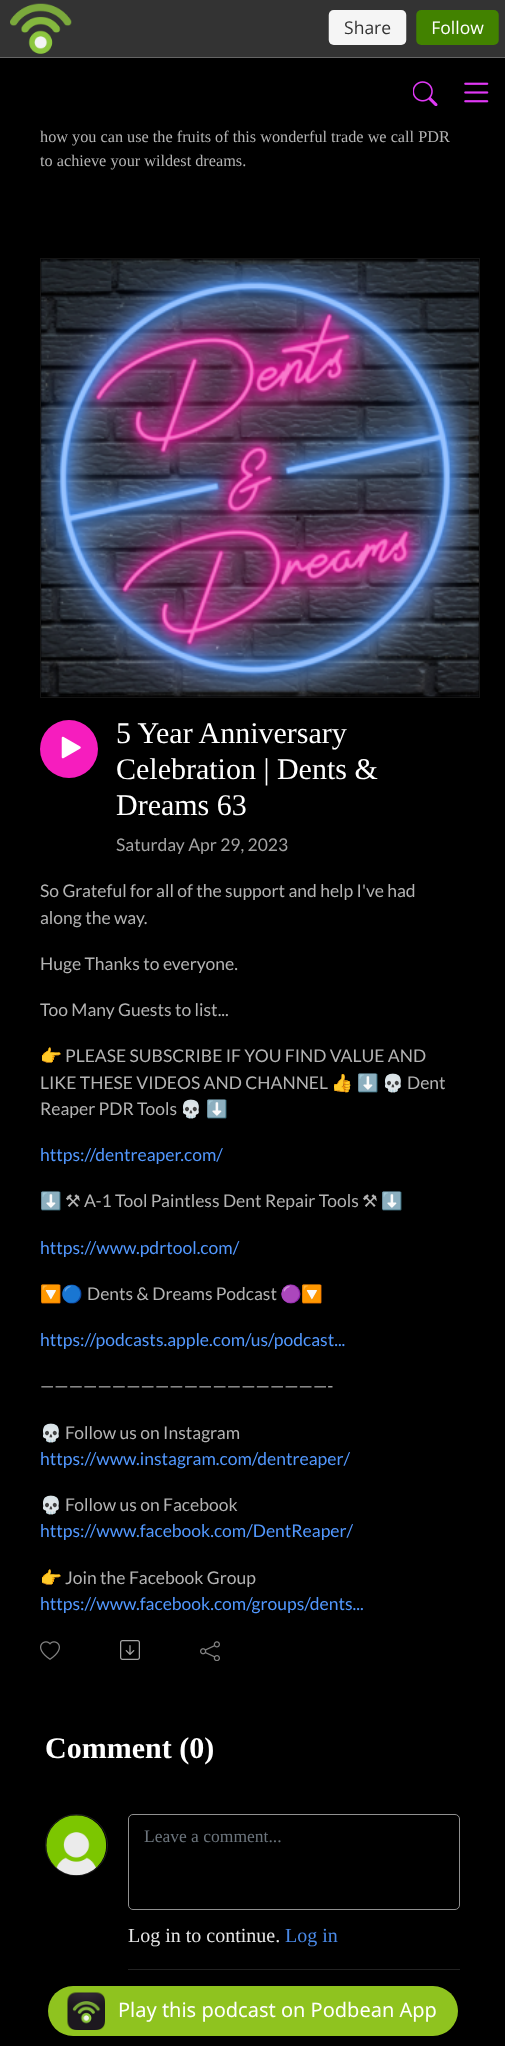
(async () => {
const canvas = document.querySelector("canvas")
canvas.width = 505
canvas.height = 2046
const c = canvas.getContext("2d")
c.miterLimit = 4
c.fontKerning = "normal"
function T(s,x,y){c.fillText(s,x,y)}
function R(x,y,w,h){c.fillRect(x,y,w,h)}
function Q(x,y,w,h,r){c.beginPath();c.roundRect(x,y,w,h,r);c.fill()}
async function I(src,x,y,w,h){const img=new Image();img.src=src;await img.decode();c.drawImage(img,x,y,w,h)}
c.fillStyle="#000"
R(0,0,505,2046)
c.fillStyle="#333"
R(0,0,505,3)
await I("1.png",0,3,505,55)
await I("2.png",413,81,25,25)
await I("3.png",464,82,25,21)
c.font="16.25px Liberation Serif"
c.fillStyle="#b3b3b3"
T("how you can use the fruits of this wonderful trade we call PDR",40,142)
T("to achieve your wildest dreams.",40,166)
c.strokeStyle="#151515"
c.strokeRect(40.5,258.5,439,439)
await I("4.png",41,259,438,438)
c.fillStyle="#f61dbe"
c.beginPath()
c.arc(69,749,29,0,7)
c.fill()
await I("5.png",61,736,20,23)
c.font="30px Liberation Serif"
c.fillStyle="#fff"
T("5 Year Anniversary",116,743)
T("Celebration | Dents &",116,779)
T("Dreams 63",116,815)
c.font="17.5px Lato"
c.fillStyle="#a3a3a3"
T("Saturday Apr 29, 2023",116,851)
c.fillStyle="#b3b3b3"
T("So Grateful for all of the support and help I've had",40,897)
T("along the way.",40,924)
T("Huge Thanks to everyone.",40,970)
T("Too Many Guests to list...",40,1016)
c.font="17.5px Noto Color Emoji"
T("👉",40,1062)
c.font="17.5px Lato"
T("PLEASE SUBSCRIBE IF YOU FIND VALUE AND",65,1062)
T("LIKE THESE VIDEOS AND CHANNEL",40,1089)
c.font="17.5px Noto Color Emoji"
T("👍",331,1089)
T("⬇️",357,1089)
T("💀",382,1089)
c.font="17.5px Lato"
T("Dent",407,1089)
T("Reaper PDR Tools",40,1115)
c.font="17.5px Noto Color Emoji"
T("💀",180,1115)
T("⬇️",206,1115)
c.font="17.5px Lato"
c.fillStyle="#5298ff"
T("https://dentreaper.com/",40,1161)
c.font="17.5px Noto Color Emoji"
c.fillStyle="#b3b3b3"
T("⬇️",40,1207)
c.font="17.5px DejaVu Sans"
T("⚒",65,1207)
c.font="17.5px Lato"
T("A-1 Tool Paintless Dent Repair Tools",84,1207)
c.font="17.5px DejaVu Sans"
T("⚒",362,1207)
c.font="17.5px Noto Color Emoji"
T("⬇️",381,1207)
c.font="17.5px Lato"
c.fillStyle="#5298ff"
T("https://www.pdrtool.com/",40,1254)
c.font="17.5px Noto Color Emoji"
c.fillStyle="#b3b3b3"
T("🔽🔵",40,1300)
c.font="17.5px Lato"
T("Dents & Dreams Podcast",87,1300)
c.font="17.5px Noto Color Emoji"
T("🟣🔽",280,1300)
c.font="17.5px Lato"
c.fillStyle="#5298ff"
T("https://podcasts.apple.com/us/podcast...",40,1346)
c.fillStyle="#b3b3b3"
T("————————————————————-",40,1392)
c.font="17.5px Noto Color Emoji"
T("💀",40,1439)
c.font="17.5px Lato"
T("Follow us on Instagram",65,1439)
c.fillStyle="#5298ff"
T("https://www.instagram.com/dentreaper/",40,1465)
c.font="17.5px Noto Color Emoji"
c.fillStyle="#b3b3b3"
T("💀",40,1511)
c.font="17.5px Lato"
T("Follow us on Facebook",65,1511)
c.fillStyle="#5298ff"
T("https://www.facebook.com/DentReaper/",40,1537)
c.font="17.5px Noto Color Emoji"
c.fillStyle="#b3b3b3"
T("👉",40,1584)
c.font="17.5px Lato"
T("Join the Facebook Group",65,1584)
c.fillStyle="#5298ff"
T("https://www.facebook.com/groups/dents...",40,1610)
await I("6.png",40,1641,20,19)
await I("7.png",120,1640,20,20)
await I("8.png",200,1641,20,20)
c.font="bold 30px Liberation Serif"
c.fillStyle="#fff"
T("Comment (0)",45,1758)
c.beginPath()
c.roundRect(45.5,1814.5,62,61,30.5)
c.strokeStyle="#202020"
c.stroke()
await I("9.png",46,1815,61,61)
c.fillStyle="#222"
R(128,1969,332,1)
c.beginPath()
c.roundRect(128.5,1814.5,331,95,4.5)
c.strokeStyle="#909090"
c.stroke()
c.font="17.5px Liberation Serif"
c.fillStyle="#6c757d"
T("Leave a comment...",144,1842)
c.font="20px Liberation Serif"
c.fillStyle="#e6e6e6"
T("Log in to continue.",128,1942)
c.fillStyle="#4a89e6"
T("Log in",285,1942)
c.fillStyle="#8fc31f"
Q(48,1986,410,50,25)
await I("10.png",67,1992,38,38)
c.font="20px Noto Sans"
c.fillStyle="#fff"
T("Play this podcast on Podbean App",118,2017)
})()
